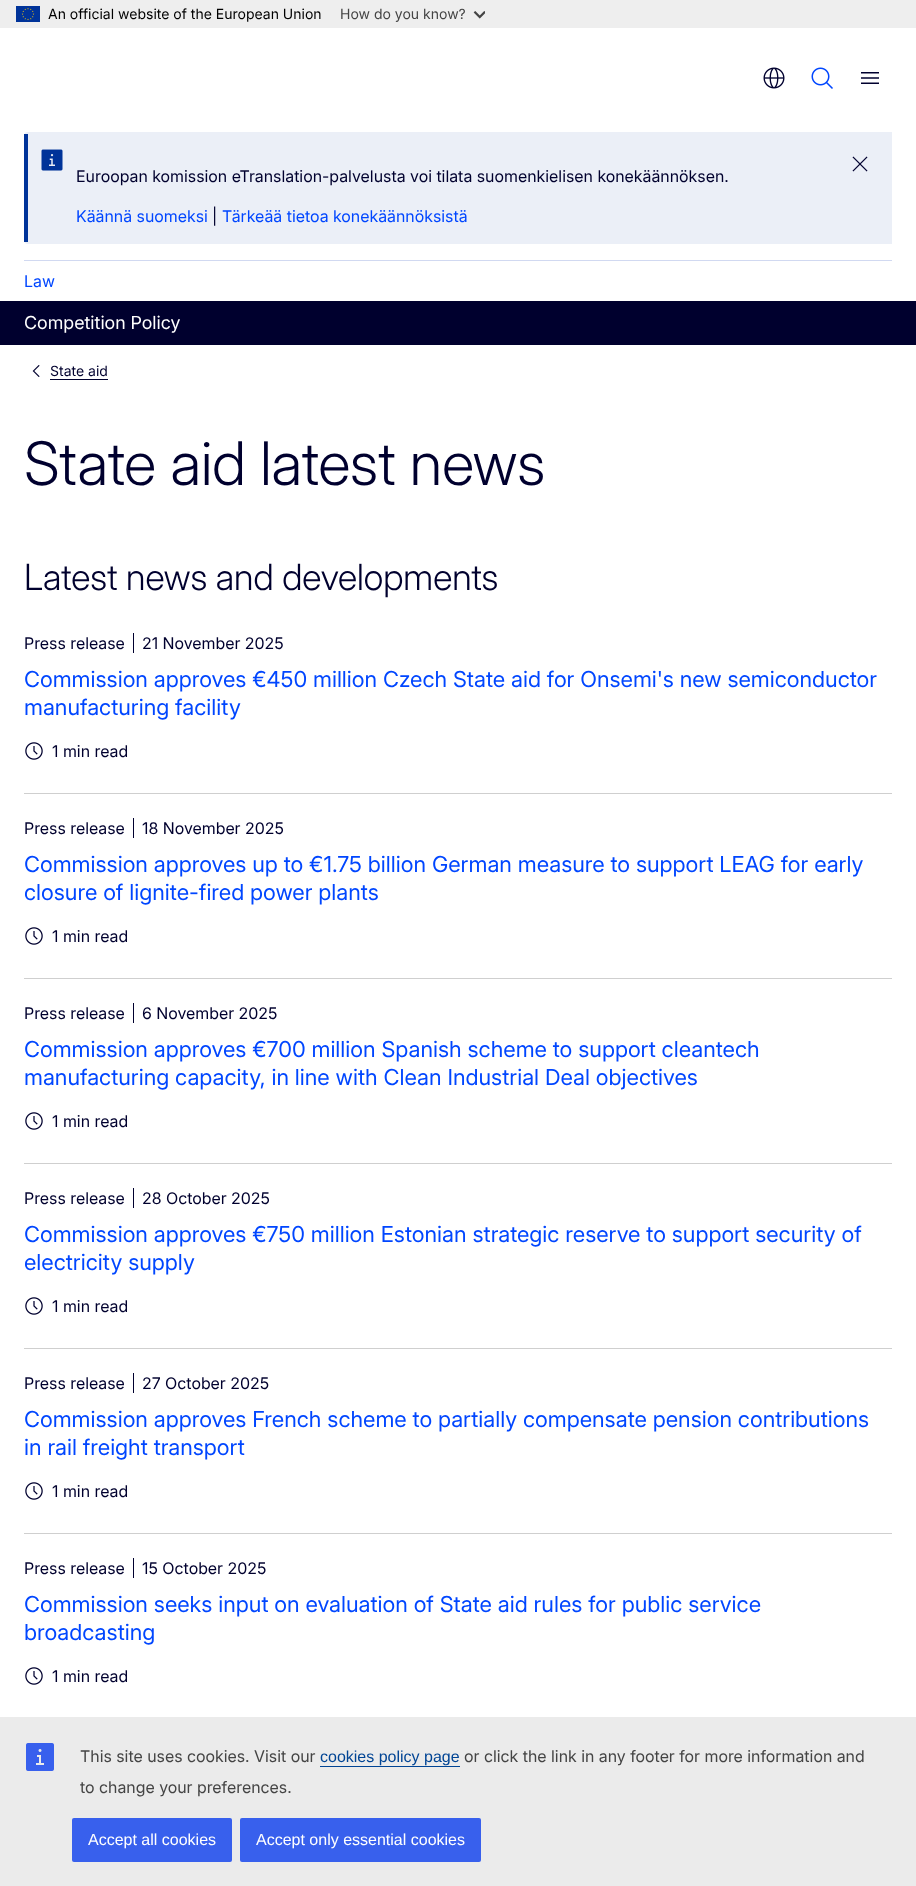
(async () => {
const canvas = document.querySelector("canvas")
canvas.width = 916
canvas.height = 1886
const c = canvas.getContext("2d")
c.miterLimit = 4
c.fontKerning = "normal"
function T(s,x,y){c.fillText(s,x,y)}
function R(x,y,w,h){c.fillRect(x,y,w,h)}
function Q(x,y,w,h,r){c.beginPath();c.roundRect(x,y,w,h,r);c.fill()}
async function I(src,x,y,w,h){const img=new Image();img.src=src;await img.decode();c.drawImage(img,x,y,w,h)}
c.fillStyle="#fff"
R(0,0,916,1886)
c.fillStyle="#eee"
R(0,0,916,28)
await I("1.png",16,6,24,16)
c.font="14px Inter"
c.fillStyle="#000"
T("An official website of the European Union",48,19)
c.fillStyle="#444"
T("How do you know?",340,19)
await I("2.png",473,11,12,8)
await I("3.png",763,67,22,22)
await I("4.png",811,67,22,22)
await I("5.png",861,72,18,12)
c.fillStyle="#ebeff7"
c.beginPath()
c.roundRect(24,132,868,112,[4,0,0,4])
c.fill()
c.fillStyle="#039"
R(24,134,4,108)
await I("6.png",41,149,22,22)
await I("7.png",852,156,16,16)
c.font="16px 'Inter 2'"
c.fillStyle="#00002e"
T("Euroopan komission eTranslation-palvelusta voi tilata suomenkielisen konekäännöksen.",76,182)
c.fillStyle="#0046ff"
T("Käännä suomeksi",76,222)
c.fillStyle="#00002e"
T("|",212,222)
c.fillStyle="#0046ff"
T("Tärkeää tietoa konekäännöksistä",222,222)
c.fillStyle="#d1d9f1"
R(24,260,868,1)
c.fillStyle="#0046ff"
T("Law",24,287)
c.fillStyle="#00002e"
R(0,301,916,44)
c.font="18px 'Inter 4'"
c.fillStyle="#fff"
T("Competition Policy",24,329)
await I("8.png",32,365,8,12)
c.font="14px Inter"
c.fillStyle="#00002e"
T("State aid",50,376)
R(50,379,58,1)
c.font="300 60px Inter"
T("State aid latest news",24,485)
c.font="300 36px Inter"
T("Latest news and developments",24,590)
c.fillStyle="#cfcfcf"
R(24,793,868,1)
c.font="16px 'Inter 2'"
c.fillStyle="#00002e"
T("Press release",24,649)
R(133,633,1,20)
T("21 November 2025",142,649)
c.font="22px 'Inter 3'"
c.fillStyle="#0046ff"
T("Commission approves €450 million Czech State aid for Onsemi's new semiconductor",24,687)
T("manufacturing facility",24,715)
await I("9.png",25,742,18,18)
c.font="16px 'Inter 2'"
c.fillStyle="#00002e"
T("1 min read",52,757)
c.fillStyle="#cfcfcf"
R(24,978,868,1)
c.fillStyle="#00002e"
T("Press release",24,834)
R(133,818,1,20)
T("18 November 2025",142,834)
c.font="22px 'Inter 3'"
c.fillStyle="#0046ff"
T("Commission approves up to €1.75 billion German measure to support LEAG for early",24,872)
T("closure of lignite-fired power plants",24,900)
await I("9.png",25,927,18,18)
c.font="16px 'Inter 2'"
c.fillStyle="#00002e"
T("1 min read",52,942)
c.fillStyle="#cfcfcf"
R(24,1163,868,1)
c.fillStyle="#00002e"
T("Press release",24,1019)
R(133,1003,1,20)
T("6 November 2025",142,1019)
c.font="22px 'Inter 3'"
c.fillStyle="#0046ff"
T("Commission approves €700 million Spanish scheme to support cleantech",24,1057)
T("manufacturing capacity, in line with Clean Industrial Deal objectives",24,1085)
await I("9.png",25,1112,18,18)
c.font="16px 'Inter 2'"
c.fillStyle="#00002e"
T("1 min read",52,1127)
c.fillStyle="#cfcfcf"
R(24,1348,868,1)
c.fillStyle="#00002e"
T("Press release",24,1204)
R(133,1188,1,20)
T("28 October 2025",142,1204)
c.font="22px 'Inter 3'"
c.fillStyle="#0046ff"
T("Commission approves €750 million Estonian strategic reserve to support security of",24,1242)
T("electricity supply",24,1270)
await I("9.png",25,1297,18,18)
c.font="16px 'Inter 2'"
c.fillStyle="#00002e"
T("1 min read",52,1312)
c.fillStyle="#cfcfcf"
R(24,1533,868,1)
c.fillStyle="#00002e"
T("Press release",24,1389)
R(133,1373,1,20)
T("27 October 2025",142,1389)
c.font="22px 'Inter 3'"
c.fillStyle="#0046ff"
T("Commission approves French scheme to partially compensate pension contributions",24,1427)
T("in rail freight transport",24,1455)
await I("9.png",25,1482,18,18)
c.font="16px 'Inter 2'"
c.fillStyle="#00002e"
T("1 min read",52,1497)
T("Press release",24,1574)
R(133,1558,1,20)
T("15 October 2025",142,1574)
c.font="22px 'Inter 3'"
c.fillStyle="#0046ff"
T("Commission seeks input on evaluation of State aid rules for public service",24,1612)
T("broadcasting",24,1640)
await I("9.png",25,1667,18,18)
c.font="16px 'Inter 2'"
c.fillStyle="#00002e"
T("1 min read",52,1682)
c.fillStyle="#ebebeb"
R(0,1717,916,169)
await I("10.png",26,1743,28,28)
c.fillStyle="#444"
T("This site uses cookies. Visit our",80,1762)
c.font="16px Liberation Sans"
c.fillStyle="#004494"
T("cookies policy page",320,1762)
R(320,1766,140,1)
c.font="16px 'Inter 2'"
c.fillStyle="#444"
T("or click the link in any footer for more information and",464,1762)
T("to change your preferences.",80,1793)
c.fillStyle="#3860ed"
Q(72,1818,160,44,2)
c.font="16px Liberation Sans"
c.fillStyle="#fff"
T("Accept all cookies",88,1845)
c.fillStyle="#3860ed"
Q(240,1818,241,44,2)
c.fillStyle="#fff"
T("Accept only essential cookies",256,1845)
})()
